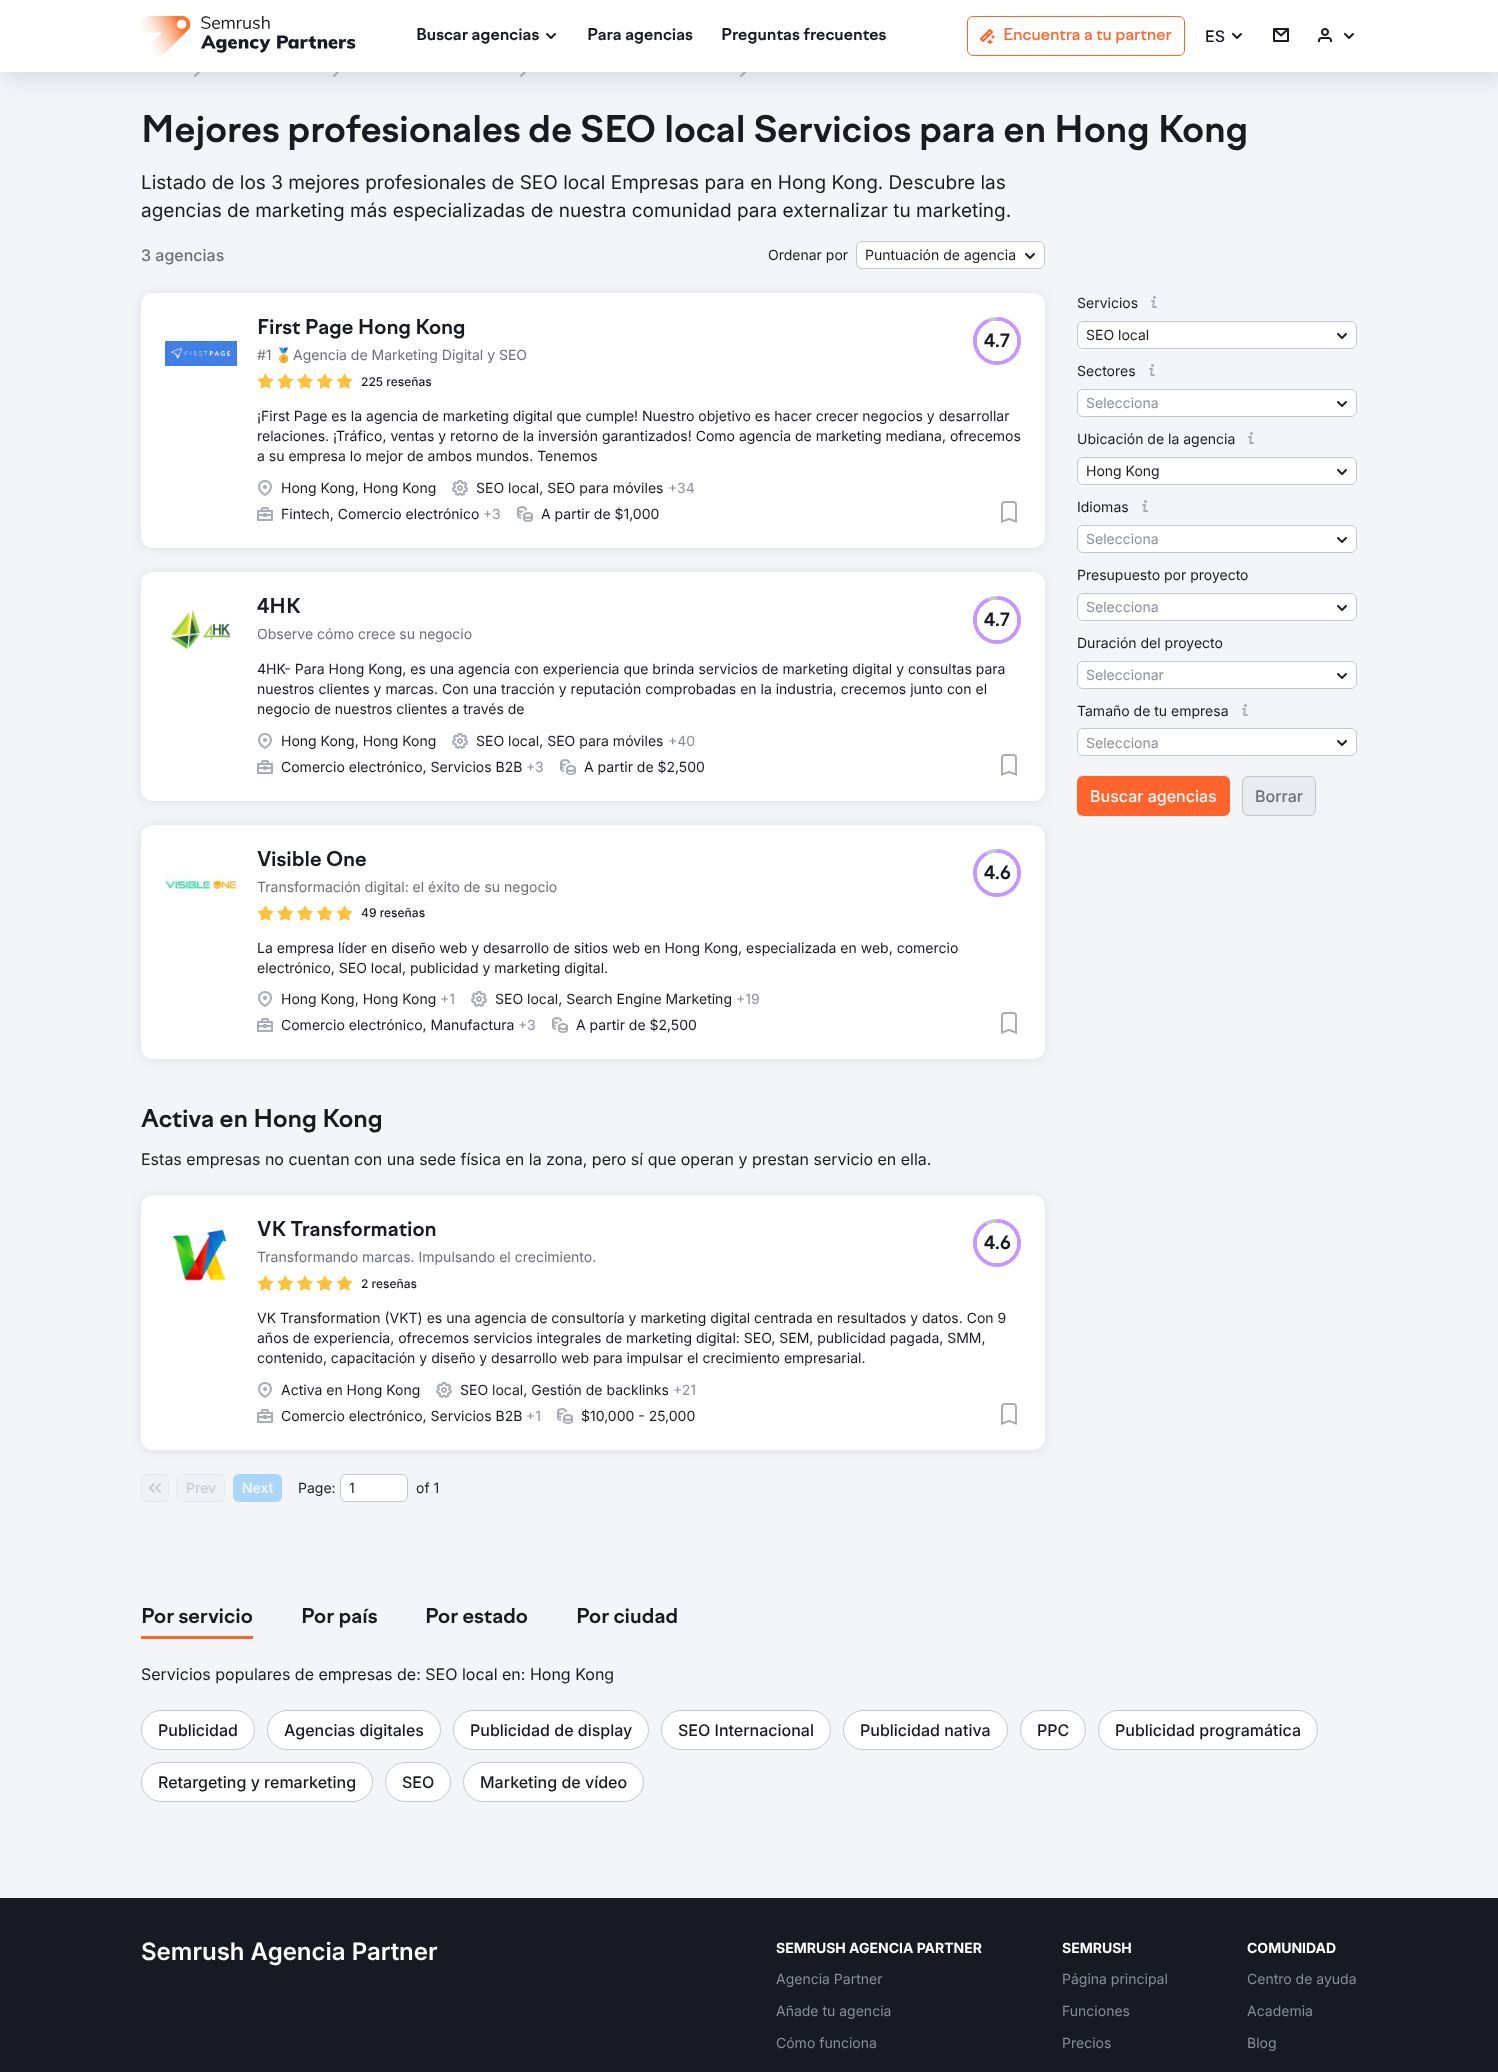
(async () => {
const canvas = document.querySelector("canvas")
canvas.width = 1498
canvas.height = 2072
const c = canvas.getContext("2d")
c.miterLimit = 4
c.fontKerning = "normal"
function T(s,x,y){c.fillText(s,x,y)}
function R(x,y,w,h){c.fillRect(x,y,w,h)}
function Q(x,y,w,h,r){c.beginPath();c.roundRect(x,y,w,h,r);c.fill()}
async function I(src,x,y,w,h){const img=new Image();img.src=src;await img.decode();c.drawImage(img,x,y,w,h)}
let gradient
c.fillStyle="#f4f5f9"
R(0,0,1498,2072)
await I("6.png",194,72,6,5)
await I("6.png",333,72,6,5)
await I("6.png",520,72,6,5)
await I("6.png",740,72,6,5)
c.fillStyle="#898d9a4d"
c.filter="blur(12.5px)"
c.beginPath()
c.rect(5,5,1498,72)
c.fill()
c.filter="none"
c.fillStyle="#fff"
R(0,0,1498,72)
await I("1.png",141,16,215,40)
c.font="bold 16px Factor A"
c.fillStyle="#191b23"
T("Buscar agencias",416,40)
await I("2.png",546,33,10,6)
T("Para agencias",587,40)
T("Preguntas frecuentes",721,40)
c.beginPath()
c.roundRect(967.5,16.5,217,39,5.5)
c.strokeStyle="#ff642d"
c.stroke()
await I("3.png",980,29,15,15)
c.font="500 16px Factor A"
c.fillStyle="#ff642d"
T("Encuentra a tu partner",1003,40)
c.font="500 16px Inter"
c.fillStyle="#191b23"
T("ES",1205,42)
await I("2.png",1232,33,10,6)
await I("4.png",1273,28,16,14)
await I("5.png",1318,28,14,14)
await I("2.png",1344,33,10,6)
c.font="bold 36px Factor A"
T("Mejores profesionales de SEO local Servicios para en Hong Kong",141,142)
c.font="19px Inter"
T("Listado de los 3 mejores profesionales de SEO local Empresas para en Hong Kong. Descubre las",141,189)
T("agencias de marketing más especializadas de nuestra comunidad para externalizar tu marketing.",141,217)
c.font="500 16px Inter"
c.fillStyle="#6c6e79"
T("3 agencias",141,261)
c.font="14px Inter"
c.fillStyle="#191b23"
T("Ordenar por",768,260)
c.fillStyle="#fff"
c.beginPath()
c.roundRect(856.5,241.5,188,27,5.5)
c.fill()
c.strokeStyle="#c4c7cf"
c.stroke()
c.fillStyle="#191b23"
T("Puntuación de agencia",865,260)
await I("2.png",1025,253,10,6)
c.fillStyle="#191b231a"
c.filter="blur(6px)"
c.beginPath()
c.roundRect(141,294,904,255,12)
c.fill()
c.filter="none"
c.fillStyle="#fff"
Q(141,293,904,255,12)
await I("7.png",165,341,72,25)
c.font="bold 20px Factor A"
c.fillStyle="#191b23"
T("First Page Hong Kong",257,334)
c.font="14px Inter"
c.fillStyle="#6c6e79"
T("#1",257,360)
c.font="14px Noto Color Emoji"
T("🏅",275,360)
c.font="14px Inter"
T("Agencia de Marketing Digital y SEO",293,360)
await I("8.png",257,373,96,16)
c.font="500 12px Inter"
c.fillStyle="#191b23"
T("225 reseñas",361,386)
await I("9.png",973,317,48,48)
gradient = c.createRadialGradient(997,341,0,997,341,24)
gradient.addColorStop(.84,"#fff")
gradient.addColorStop(.85,"#ffffff00")
gradient.addColorStop(1,"#00000000")
c.fillStyle = gradient
R(977,321,40,40)
c.font="bold 18px Factor A"
c.fillStyle="#191b23"
T("4.7",984,347)
c.font="14px Inter"
T("¡First Page es la agencia de marketing digital que cumple! Nuestro objetivo es hacer crecer negocios y desarrollar",257,421)
T("relaciones. ¡Tráfico, ventas y retorno de la inversión garantizados! Como agencia de marketing mediana, ofrecemos",257,441)
T("a su empresa lo mejor de ambos mundos. Tenemos",257,461)
await I("10.png",258,480,14,16)
T("Hong Kong, Hong Kong",281,493)
await I("11.png",452,480,16,16)
T("SEO local, SEO para móviles",476,493)
c.fillStyle="#8a8e9b"
T("+34",668,493)
await I("12.png",257,507,16,14)
c.fillStyle="#191b23"
T("Fintech, Comercio electrónico",281,519)
c.fillStyle="#8a8e9b"
T("+3",483,519)
await I("13.png",517,506,16,16)
c.fillStyle="#191b23"
T("A partir de $1,000",541,519)
await I("14.png",1001,501,16,22)
c.fillStyle="#191b231a"
c.filter="blur(6px)"
c.beginPath()
c.roundRect(141,573,904,229,12)
c.fill()
c.filter="none"
c.fillStyle="#fff"
Q(141,572,904,229,12)
await I("15.png",170,609,61,40)
c.font="bold 20px Factor A"
c.fillStyle="#191b23"
T("4HK",257,613)
c.font="14px Inter"
c.fillStyle="#6c6e79"
T("Observe cómo crece su negocio",257,639)
await I("9.png",973,596,48,48)
gradient = c.createRadialGradient(997,620,0,997,620,24)
gradient.addColorStop(.84,"#fff")
gradient.addColorStop(.85,"#ffffff00")
gradient.addColorStop(1,"#00000000")
c.fillStyle = gradient
R(977,600,40,40)
c.font="bold 18px Factor A"
c.fillStyle="#191b23"
T("4.7",984,626)
c.font="14px Inter"
T("4HK- Para Hong Kong, es una agencia con experiencia que brinda servicios de marketing digital y consultas para",257,674)
T("nuestros clientes y marcas. Con una tracción y reputación comprobadas en la industria, crecemos junto con el",257,694)
T("negocio de nuestros clientes a través de",257,714)
await I("10.png",258,733,14,16)
T("Hong Kong, Hong Kong",281,746)
await I("11.png",452,733,16,16)
T("SEO local, SEO para móviles",476,746)
c.fillStyle="#8a8e9b"
T("+40",668,746)
await I("12.png",257,760,16,14)
c.fillStyle="#191b23"
T("Comercio electrónico, Servicios B2B",281,772)
c.fillStyle="#8a8e9b"
T("+3",526,772)
await I("13.png",560,759,16,16)
c.fillStyle="#191b23"
T("A partir de $2,500",584,772)
await I("14.png",1001,754,16,22)
c.fillStyle="#191b231a"
c.filter="blur(6px)"
c.beginPath()
c.roundRect(141,826,904,234,12)
c.fill()
c.filter="none"
c.fillStyle="#fff"
Q(141,825,904,234,12)
c.font="bold 20px Factor A"
c.fillStyle="#191b23"
T("Visible One",257,866)
c.font="14px Inter"
c.fillStyle="#6c6e79"
T("Transformación digital: el éxito de su negocio",257,892)
await I("8.png",257,905,96,16)
c.font="500 12px Inter"
c.fillStyle="#191b23"
T("49 reseñas",361,917)
await I("16.png",973,849,48,48)
gradient = c.createRadialGradient(997,873,0,997,873,24)
gradient.addColorStop(.84,"#fff")
gradient.addColorStop(.85,"#ffffff00")
gradient.addColorStop(1,"#00000000")
c.fillStyle = gradient
R(977,853,40,40)
c.font="bold 18px Factor A"
c.fillStyle="#191b23"
T("4.6",984,879)
await I("17.png",165,874,72,27)
c.font="14px Inter"
T("La empresa líder en diseño web y desarrollo de sitios web en Hong Kong, especializada en web, comercio",257,953)
T("electrónico, SEO local, publicidad y marketing digital.",257,973)
await I("10.png",258,991,14,16)
T("Hong Kong, Hong Kong",281,1004)
c.fillStyle="#8a8e9b"
T("+1",440,1004)
await I("11.png",471,991,16,16)
c.fillStyle="#191b23"
T("SEO local, Search Engine Marketing",495,1004)
c.fillStyle="#8a8e9b"
T("+19",736,1004)
await I("12.png",257,1018,16,14)
c.fillStyle="#191b23"
T("Comercio electrónico, Manufactura",281,1030)
c.fillStyle="#8a8e9b"
T("+3",518,1030)
await I("13.png",552,1017,16,16)
c.fillStyle="#191b23"
T("A partir de $2,500",576,1030)
await I("14.png",1001,1012,16,22)
c.font="bold 24px Factor A"
T("Activa en Hong Kong",141,1127)
c.font="16px Inter"
T("Estas empresas no cuentan con una sede física en la zona, pero sí que operan y prestan servicio en ella.",141,1165)
c.fillStyle="#191b231a"
c.filter="blur(6px)"
c.beginPath()
c.roundRect(141,1196,904,255,12)
c.fill()
c.filter="none"
c.fillStyle="#fff"
Q(141,1195,904,255,12)
await I("18.png",172,1229,55,52)
c.font="bold 20px Factor A"
c.fillStyle="#191b23"
T("VK Transformation",257,1236)
c.font="14px Inter"
c.fillStyle="#6c6e79"
T("Transformando marcas. Impulsando el crecimiento.",257,1262)
await I("8.png",257,1275,96,16)
c.font="500 12px Inter"
c.fillStyle="#191b23"
T("2 reseñas",361,1288)
await I("16.png",973,1219,48,48)
gradient = c.createRadialGradient(997,1243,0,997,1243,24)
gradient.addColorStop(.84,"#fff")
gradient.addColorStop(.85,"#ffffff00")
gradient.addColorStop(1,"#00000000")
c.fillStyle = gradient
R(977,1223,40,40)
c.font="bold 18px Factor A"
c.fillStyle="#191b23"
T("4.6",984,1249)
c.font="14px Inter"
T("VK Transformation (VKT) es una agencia de consultoría y marketing digital centrada en resultados y datos. Con 9",257,1323)
T("años de experiencia, ofrecemos servicios integrales de marketing digital: SEO, SEM, publicidad pagada, SMM,",257,1343)
T("contenido, capacitación y diseño y desarrollo web para impulsar el crecimiento empresarial.",257,1363)
await I("10.png",258,1382,14,16)
T("Activa en Hong Kong",281,1395)
await I("11.png",436,1382,16,16)
T("SEO local, Gestión de backlinks",460,1395)
c.fillStyle="#8a8e9b"
T("+21",673,1395)
await I("12.png",257,1409,16,14)
c.fillStyle="#191b23"
T("Comercio electrónico, Servicios B2B",281,1421)
c.fillStyle="#8a8e9b"
T("+1",526,1421)
await I("13.png",557,1408,16,16)
c.fillStyle="#191b23"
T("$10,000 - 25,000",581,1421)
await I("14.png",1001,1403,16,22)
T("Servicios",1077,308)
await I("19.png",1151,296,6,12)
c.fillStyle="#fff"
c.beginPath()
c.roundRect(1077.5,321.5,279,27,5.5)
c.fill()
c.stroke()
c.fillStyle="#191b23"
T("SEO local",1086,340)
await I("2.png",1337,333,10,6)
T("Sectores",1077,376)
await I("19.png",1149,364,6,12)
c.fillStyle="#fff"
c.beginPath()
c.roundRect(1077.5,389.5,279,27,5.5)
c.fill()
c.stroke()
c.fillStyle="#8a8e9b"
T("Selecciona",1086,408)
await I("2.png",1337,401,10,6)
c.fillStyle="#191b23"
T("Ubicación de la agencia",1077,444)
await I("19.png",1248,432,6,12)
c.fillStyle="#fff"
c.beginPath()
c.roundRect(1077.5,457.5,279,27,5.5)
c.fill()
c.stroke()
c.fillStyle="#191b23"
T("Hong Kong",1086,476)
await I("2.png",1337,469,10,6)
T("Idiomas",1077,512)
await I("19.png",1142,500,6,12)
c.fillStyle="#fff"
c.beginPath()
c.roundRect(1077.5,525.5,279,27,5.5)
c.fill()
c.stroke()
c.fillStyle="#8a8e9b"
T("Selecciona",1086,544)
await I("2.png",1337,537,10,6)
c.fillStyle="#191b23"
T("Presupuesto por proyecto",1077,580)
c.fillStyle="#fff"
c.beginPath()
c.roundRect(1077.5,593.5,279,27,5.5)
c.fill()
c.stroke()
c.fillStyle="#8a8e9b"
T("Selecciona",1086,612)
await I("2.png",1337,605,10,6)
c.fillStyle="#191b23"
T("Duración del proyecto",1077,648)
c.fillStyle="#fff"
c.beginPath()
c.roundRect(1077.5,661.5,279,27,5.5)
c.fill()
c.stroke()
c.fillStyle="#8a8e9b"
T("Seleccionar",1086,680)
await I("2.png",1337,673,10,6)
c.fillStyle="#191b23"
T("Tamaño de tu empresa",1077,716)
await I("19.png",1242,704,6,12)
c.fillStyle="#fff"
c.beginPath()
c.roundRect(1077.5,728.5,279,27,5.5)
c.fill()
c.stroke()
c.fillStyle="#8a8e9b"
T("Selecciona",1086,748)
await I("2.png",1337,740,10,6)
c.fillStyle="#ff642d"
Q(1077,776,153,40,6)
c.font="500 16px Inter"
c.fillStyle="#fff"
T("Buscar agencias",1090,802)
c.fillStyle="#e9ebf0"
c.beginPath()
c.roundRect(1242.5,776.5,73,39,5.5)
c.fill()
c.stroke()
c.fillStyle="#6c6e79"
T("Borrar",1255,802)
c.fillStyle="#f1f2f6"
c.beginPath()
c.roundRect(141.5,1474.5,27,27,5.5)
c.fill()
c.strokeStyle="#e6e7ec"
c.stroke()
await I("20.png",149,1483,12,10)
c.beginPath()
c.roundRect(177.5,1474.5,47,27,5.5)
c.fill()
c.stroke()
c.font="500 14px Inter"
c.fillStyle="#cbcdd3"
T("Prev",186,1493)
c.fillStyle="#abd6f9"
Q(233,1474,49,28,6)
c.fillStyle="#f7f8fb"
T("Next",242,1493)
c.font="14px Inter"
c.fillStyle="#191b23"
T("Page:",298,1493)
c.fillStyle="#fff"
c.beginPath()
c.roundRect(340.5,1474.5,67,27,5.5)
c.fill()
c.strokeStyle="#c4c7cf"
c.stroke()
c.fillStyle="#191b23"
T("1",349,1493)
T("of 1",416,1493)
c.font="bold 20px Factor A"
T("Por servicio",141,1623)
c.fillStyle="#ff642d"
R(141,1636,112,3)
c.fillStyle="#191b23"
T("Por país",301,1623)
T("Por estado",425,1623)
T("Por ciudad",576,1623)
c.font="16px Inter"
T("Servicios populares de empresas de: SEO local en: Hong Kong",141,1680)
c.fillStyle="#fff"
c.beginPath()
c.roundRect(141.5,1710.5,113,39,19.5)
c.fill()
c.stroke()
c.font="500 16px Inter"
c.fillStyle="#191b23"
T("Publicidad",158,1736)
c.fillStyle="#fff"
c.beginPath()
c.roundRect(267.5,1710.5,173,39,19.5)
c.fill()
c.stroke()
c.fillStyle="#191b23"
T("Agencias digitales",284,1736)
c.fillStyle="#fff"
c.beginPath()
c.roundRect(453.5,1710.5,195,39,19.5)
c.fill()
c.stroke()
c.fillStyle="#191b23"
T("Publicidad de display",470,1736)
c.fillStyle="#fff"
c.beginPath()
c.roundRect(661.5,1710.5,169,39,19.5)
c.fill()
c.stroke()
c.fillStyle="#191b23"
T("SEO Internacional",678,1736)
c.fillStyle="#fff"
c.beginPath()
c.roundRect(843.5,1710.5,164,39,19.5)
c.fill()
c.stroke()
c.fillStyle="#191b23"
T("Publicidad nativa",860,1736)
c.fillStyle="#fff"
c.beginPath()
c.roundRect(1020.5,1710.5,65,39,19.5)
c.fill()
c.stroke()
c.fillStyle="#191b23"
T("PPC",1037,1736)
c.fillStyle="#fff"
c.beginPath()
c.roundRect(1098.5,1710.5,219,39,19.5)
c.fill()
c.stroke()
c.fillStyle="#191b23"
T("Publicidad programática",1115,1736)
c.fillStyle="#fff"
c.beginPath()
c.roundRect(141.5,1762.5,231,39,19.5)
c.fill()
c.stroke()
c.fillStyle="#191b23"
T("Retargeting y remarketing",158,1788)
c.fillStyle="#fff"
c.beginPath()
c.roundRect(385.5,1762.5,65,39,19.5)
c.fill()
c.stroke()
c.fillStyle="#191b23"
T("SEO",402,1788)
c.fillStyle="#fff"
c.beginPath()
c.roundRect(463.5,1762.5,180,39,19.5)
c.fill()
c.stroke()
c.fillStyle="#191b23"
T("Marketing de vídeo",480,1788)
c.fillStyle="#171a22"
R(0,1898,1498,174)
c.font="600 24px Inter"
c.fillStyle="#fff"
T("Semrush Agencia Partner",141,1960)
c.font="bold 14px Inter"
T("SEMRUSH AGENCIA PARTNER",776,1953)
c.font="14px Inter"
c.fillStyle="#8a8e9b"
T("Agencia Partner",776,1984)
T("Añade tu agencia",776,2016)
T("Cómo funciona",776,2048)
c.font="bold 14px Inter"
c.fillStyle="#fff"
T("SEMRUSH",1062,1953)
c.font="14px Inter"
c.fillStyle="#8a8e9b"
T("Página principal",1062,1984)
T("Funciones",1062,2016)
T("Precios",1062,2048)
c.font="bold 14px Inter"
c.fillStyle="#fff"
T("COMUNIDAD",1247,1953)
c.font="14px Inter"
c.fillStyle="#8a8e9b"
T("Centro de ayuda",1247,1984)
T("Academia",1247,2016)
T("Blog",1247,2048)
})()
